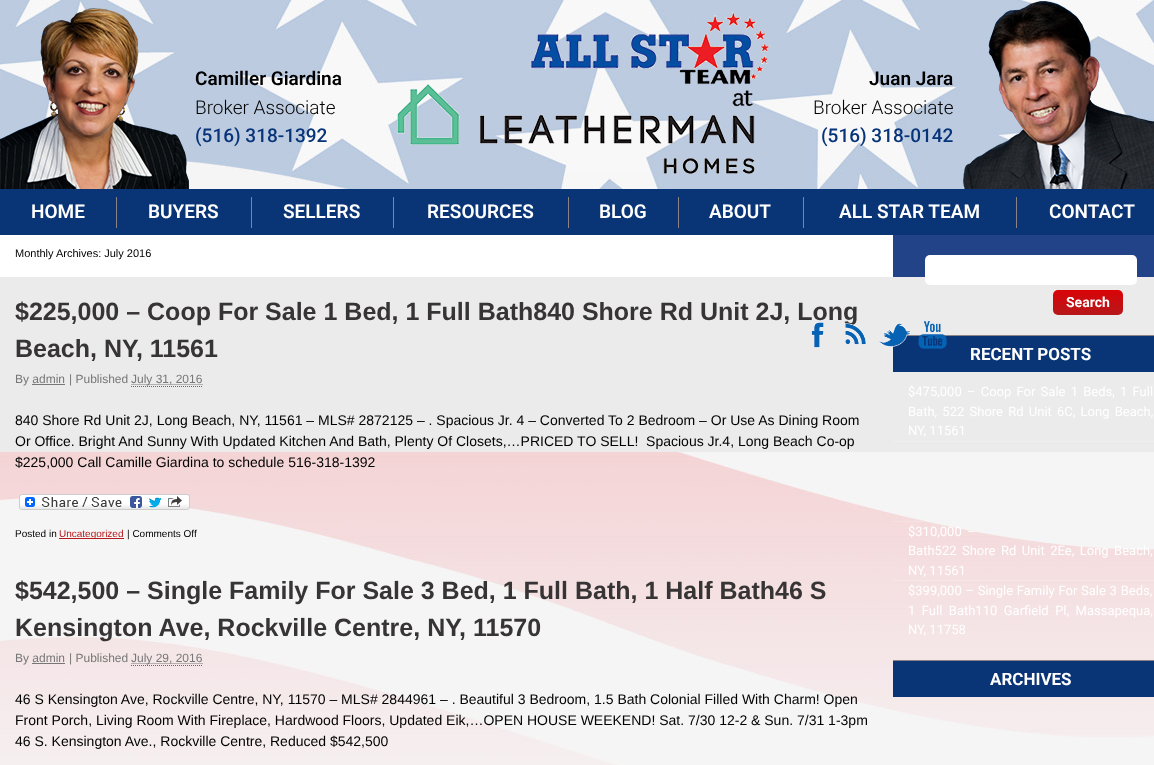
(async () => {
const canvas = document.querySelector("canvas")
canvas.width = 1154
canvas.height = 765
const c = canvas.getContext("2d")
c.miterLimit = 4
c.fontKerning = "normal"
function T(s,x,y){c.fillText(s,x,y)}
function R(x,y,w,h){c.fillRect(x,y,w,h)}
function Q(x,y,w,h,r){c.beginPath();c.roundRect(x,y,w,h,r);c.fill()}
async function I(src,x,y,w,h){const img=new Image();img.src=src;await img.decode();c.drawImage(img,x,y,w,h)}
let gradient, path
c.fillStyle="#fff"
R(0,0,1154,765)
await I("1.png",0,0,1154,765)
await I("2.png",0,1,1154,188)
c.font="600 19px Roboto"
c.fillStyle="#000"
T("Camiller Giardina",195,85)
c.font="300 19px Roboto"
T("Broker Associate",195,114)
c.font="500 19px Roboto"
c.fillStyle="#073379"
T("(516) 318-1392",195,142)
c.font="600 19px Roboto"
c.fillStyle="#000"
T("Juan Jara",869,85)
c.font="300 19px Roboto"
T("Broker Associate",813,114)
c.font="500 19px Roboto"
c.fillStyle="#073379"
T("(516) 318-0142",821,142)
c.fillStyle="#093476"
R(0,189,1154,46)
c.font="600 19px Roboto"
c.fillStyle="#fff"
T("HOME",31,218)
c.fillStyle="#898385"
R(116,197,1,31)
c.fillStyle="#fff"
T("BUYERS",148,218)
c.fillStyle="#898385"
R(251,197,1,31)
c.fillStyle="#fff"
T("SELLERS",283,218)
c.fillStyle="#898385"
R(393,197,1,31)
c.fillStyle="#fff"
T("RESOURCES",427,218)
c.fillStyle="#898385"
R(568,197,1,31)
c.fillStyle="#fff"
T("BLOG",599,218)
c.fillStyle="#898385"
R(678,197,1,31)
c.fillStyle="#fff"
T("ABOUT",709,218)
c.fillStyle="#898385"
R(803,197,1,31)
c.fillStyle="#fff"
T("ALL STAR TEAM",839,218)
c.fillStyle="#898385"
R(1016,197,1,31)
c.fillStyle="#fff"
T("CONTACT",1049,218)
R(0,235,893,42)
c.fillStyle="#224388"
R(893,235,261,42)
c.font="11px Liberation Sans"
c.fillStyle="#000"
T("Monthly Archives: July 2016",15,257)
c.fillStyle="#ebebeb"
R(0,277,1154,175)
c.font="bold 25px Liberation Sans"
c.fillStyle="#373435"
T("$225,000 – Coop For Sale 1 Bed, 1 Full Bath840 Shore Rd Unit 2J, Long",15,320)
T("Beach, NY, 11561",15,357)
c.font="12px Liberation Sans"
c.fillStyle="#777"
T("By admin",15,383)
T("| Published",69,383)
path = new Path2D("M131.5 384.5h71.5")
c.strokeStyle="#777"
c.setLineDash([1,1])
c.stroke(path)
T("July 31, 2016",131,383)
path = new Path2D("M131 386.5h72")
c.strokeStyle="#666"
c.stroke(path)
R(32,384,33,1)
c.font="14px Liberation Sans"
c.fillStyle="#000"
T("840 Shore Rd Unit 2J, Long Beach, NY, 11561 – MLS# 2872125 – . Spacious Jr. 4 – Converted To 2 Bedroom – Or Use As Dining Room",15,425)
T("Or Office. Bright And Sunny With Updated Kitchen And Bath, Plenty Of Closets,…PRICED TO SELL!  Spacious Jr.4, Long Beach Co-op",15,446)
T("$225,000 Call Camille Giardina to schedule 516-318-1392",15,467)
await I("3.png",19,494,171,16)
c.font="10px Liberation Sans"
T("Posted in",15,537)
c.fillStyle="#b6181b"
R(59,538,65,1)
T("Uncategorized",59,537)
c.fillStyle="#000"
T("| Comments Off",127,537)
c.font="bold 25px Liberation Sans"
c.fillStyle="#373435"
T("$542,500 – Single Family For Sale 3 Bed, 1 Full Bath, 1 Half Bath46 S",15,599)
T("Kensington Ave, Rockville Centre, NY, 11570",15,636)
c.font="12px Liberation Sans"
c.fillStyle="#777"
T("By admin",15,662)
T("| Published",69,662)
path = new Path2D("M131.5 663.5h71.5")
c.strokeStyle="#777"
c.stroke(path)
T("July 29, 2016",131,662)
path = new Path2D("M131 665.5h72")
c.strokeStyle="#666"
c.stroke(path)
R(32,663,33,1)
c.font="14px Liberation Sans"
c.fillStyle="#000"
T("46 S Kensington Ave, Rockville Centre, NY, 11570 – MLS# 2844961 – . Beautiful 3 Bedroom, 1.5 Bath Colonial Filled With Charm! Open",15,704)
T("Front Porch, Living Room With Fireplace, Hardwood Floors, Updated Eik,…OPEN HOUSE WEEKEND! Sat. 7/30 12-2 & Sun. 7/31 1-3pm",15,725)
T("46 S. Kensington Ave., Rockville Centre, Reduced $542,500",15,746)
c.fillStyle="#fff"
Q(925,255,212,30,5)
gradient = c.createLinearGradient(1088,290,1088,315)
gradient.addColorStop(0,"#d90307")
gradient.addColorStop(1,"#b6181b")
c.fillStyle = gradient
Q(1053,290,70,25,5)
c.font="bold 14px Roboto"
c.fillStyle="#fff"
T("Search",1066,307)
c.fillStyle="#093476"
R(893,336,261,36)
c.fillStyle="#898385"
R(906,335,248,1)
c.font="bold 17px Roboto"
c.fillStyle="#fff"
T("RECENT POSTS",970,360)
c.fillStyle="#efefef"
R(893,441,261,1)
c.wordSpacing="2px"
c.font="13px Roboto"
c.fillStyle="#fff"
T("$475,000 – Coop For Sale 1 Beds, 1 Full",908,396)
T("Bath, 522 Shore Rd Unit 6C, Long Beach,",908,416)
c.wordSpacing="0px"
T("NY, 11561",908,435)
c.fillStyle="#ffffff33"
R(893,521,36,1)
c.fillStyle="#f6e6e7"
R(893,580,261,1)
c.wordSpacing="2px"
c.fillStyle="#fff"
T("$310,000 –",908,536)
c.wordSpacing="2.25px"
T("Bath522 Shore Rd Unit 2Ee, Long Beach,",908,555)
c.wordSpacing="0px"
T("NY, 11561",908,575)
c.wordSpacing="0.5px"
T("$399,000 – Single Family For Sale 3 Beds,",908,595)
c.wordSpacing="3.25px"
T("1 Full Bath110 Garfield Pl, Massapequa,",908,615)
c.wordSpacing="0px"
T("NY, 11758",908,634)
c.fillStyle="#093476"
R(893,661,261,36)
c.fillStyle="#898385"
R(893,660,261,1)
c.font="bold 17px Roboto"
c.fillStyle="#fff"
T("ARCHIVES",990,685)
await I("4.png",811,322,13,26)
await I("5.png",845,323,22,22)
await I("6.png",879,323,32,24)
await I("7.png",918,321,29,28)
})()
